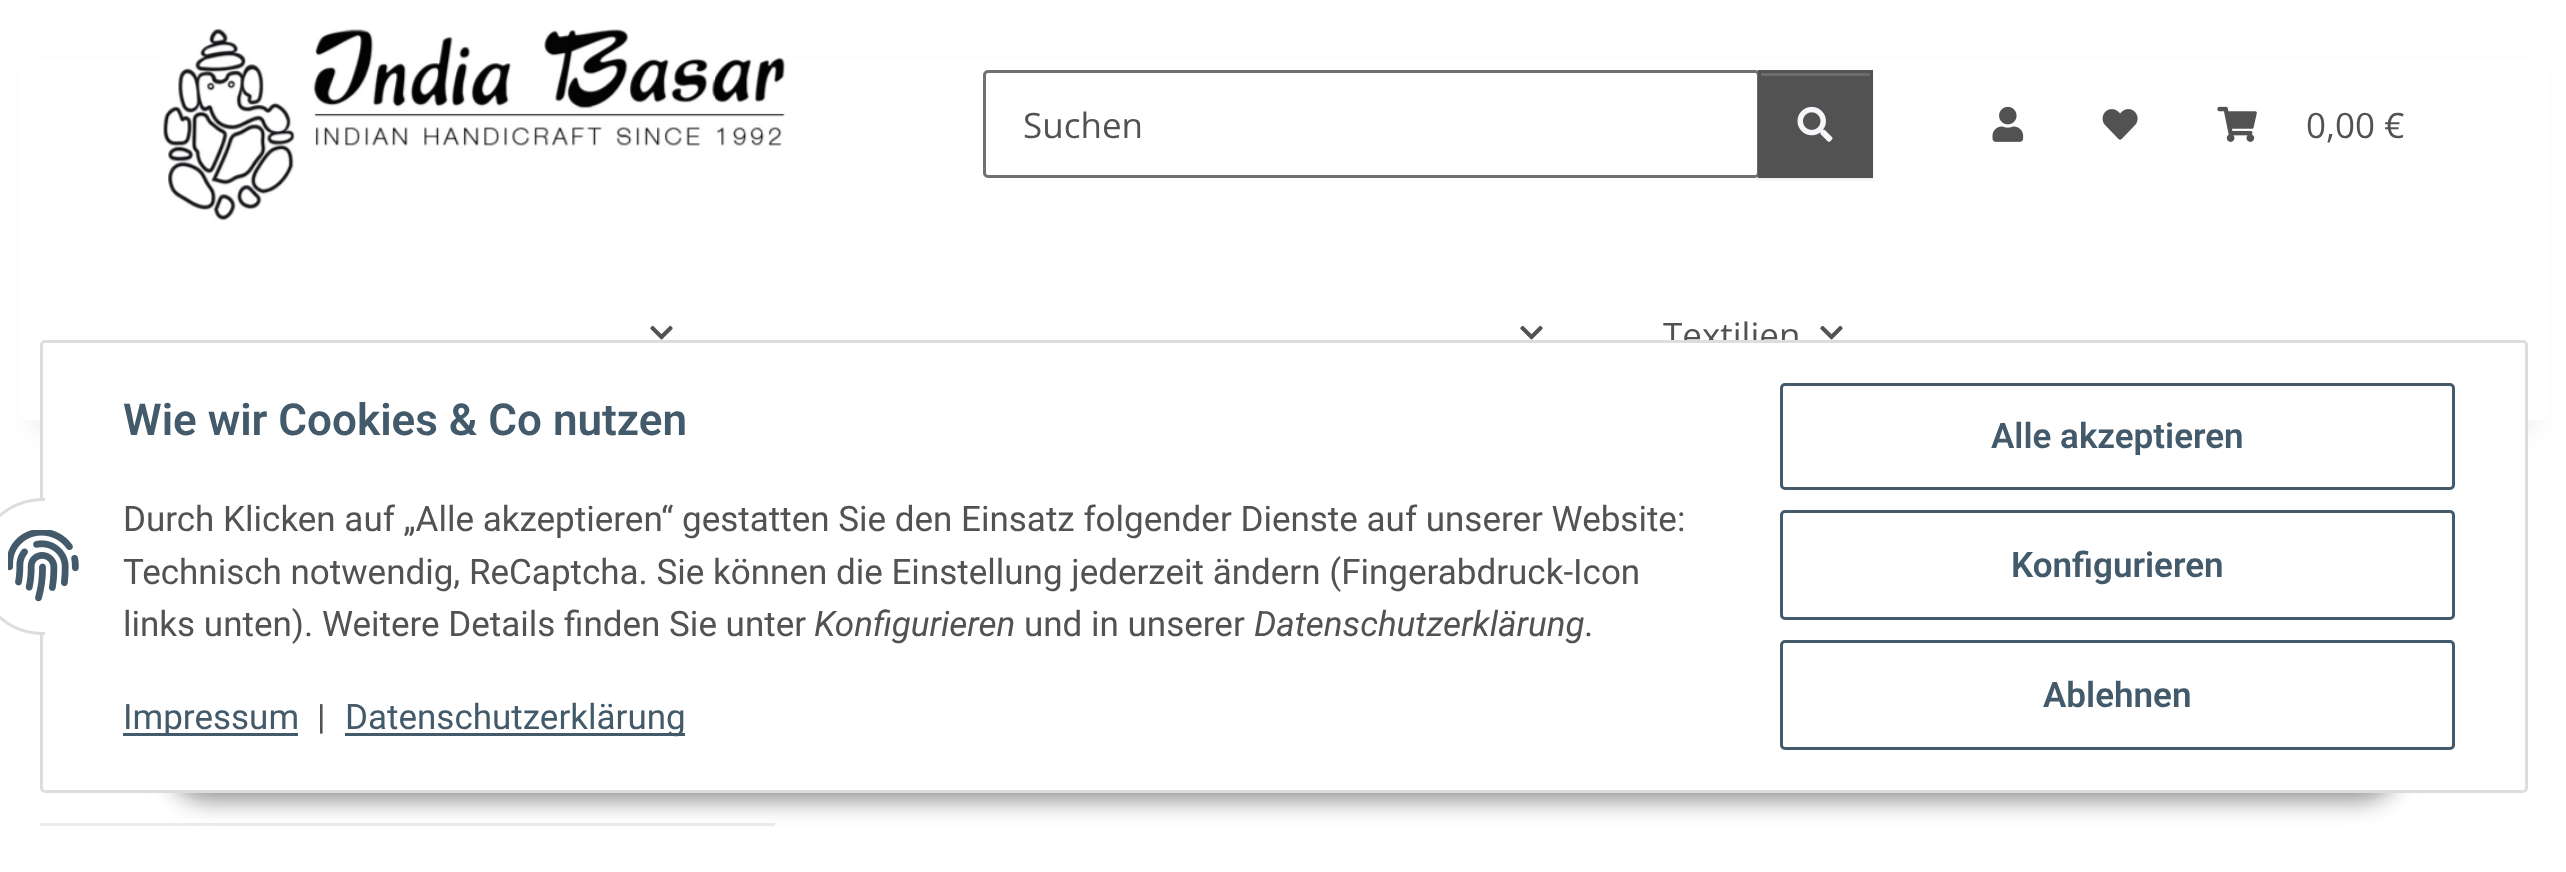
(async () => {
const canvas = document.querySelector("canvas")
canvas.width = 2566
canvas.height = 872
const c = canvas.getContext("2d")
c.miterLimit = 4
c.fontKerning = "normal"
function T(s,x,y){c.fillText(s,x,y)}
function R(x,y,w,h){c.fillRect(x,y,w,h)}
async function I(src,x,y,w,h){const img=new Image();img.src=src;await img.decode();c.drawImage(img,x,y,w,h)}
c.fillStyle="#fff"
R(0,0,2566,872)
c.fillStyle="#0000000f"
c.filter="blur(11px)"
c.beginPath()
c.rect(30,70,2508,360)
c.fill()
c.filter="none"
c.fillStyle="#fff"
R(19,59,2530,361)
await I("1.png",163,29,623,192)
c.beginPath()
c.roundRect(984.5,71.5,774,105,3.5)
c.strokeStyle="#707070"
c.lineWidth=3
c.stroke()
c.font="35px Open Sans"
c.fillStyle="#525252"
T("Suchen",1023,138)
c.fillStyle="#00000012"
c.filter="blur(1px)"
c.beginPath()
c.rect(1758,73,115,107)
c.fill()
c.filter="none"
c.fillStyle="#525252"
R(1761,76,109,99)
c.fillStyle="#6c6c6c"
R(1760,73,110,3)
c.strokeStyle="#525252"
c.strokeRect(1759.5,71.5,112,105)
await I("2.png",1797,106,36,36)
await I("3.png",1992,106,32,36)
await I("4.png",2102,109,36,31)
await I("5.png",2217,106,40,36)
c.fillStyle="#525252"
T("0,00 €",2306,138)
await I("6.png",650,325,23,15)
await I("6.png",1520,325,23,15)
T("Textilien",1663,348)
await I("6.png",1820,325,23,15)
c.fillStyle="#ebebeb"
R(40,823,735,3)
c.fillStyle="#00000073"
c.filter="blur(12.5px)"
c.beginPath()
c.roundRect(168,720,2232,80,40)
c.fill()
c.filter="none"
c.fillStyle="#fff"
c.beginPath()
c.roundRect(41.5,341.5,2485,450,3.5)
c.fill()
c.strokeStyle="#ddd"
c.stroke()
c.beginPath()
c.roundRect(-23.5,499.5,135,134,67)
c.fill()
c.stroke()
R(45,498,68,137)
await I("7.png",8,530,71,72)
c.font="600 44px Roboto"
c.fillStyle="#435a6b"
T("Wie wir Cookies & Co nutzen",123,435)
c.font="35px Roboto"
c.fillStyle="#525252"
T("Durch Klicken auf „Alle akzeptieren“ gestatten Sie den Einsatz folgender Dienste auf unserer Website:",123,531)
T("Technisch notwendig, ReCaptcha. Sie können die Einstellung jederzeit ändern (Fingerabdruck-Icon",123,584)
T("links unten). Weitere Details finden Sie unter",123,636)
c.font="italic 35px Roboto"
T("Konfigurieren",814,636)
c.font="35px Roboto"
T("und in unserer",1024,636)
c.font="italic 35px Roboto"
T("Datenschutzerklärung",1254,636)
c.font="35px Roboto"
T(".",1584,636)
c.fillStyle="#435a6b"
R(123,733,175,3)
T("Impressum",123,729)
c.fillStyle="#525252"
T("|",317,729)
c.fillStyle="#435a6b"
R(345,733,340,3)
T("Datenschutzerklärung",345,729)
c.beginPath()
c.roundRect(1781.5,384.5,672,104,3.5)
c.strokeStyle="#435a6b"
c.stroke()
c.font="600 35px Roboto"
T("Alle akzeptieren",1991,448)
c.beginPath()
c.roundRect(1781.5,511.5,672,107,3.5)
c.stroke()
T("Konfigurieren",2011,577)
c.beginPath()
c.roundRect(1781.5,641.5,672,107,3.5)
c.stroke()
T("Ablehnen",2043,707)
})()
